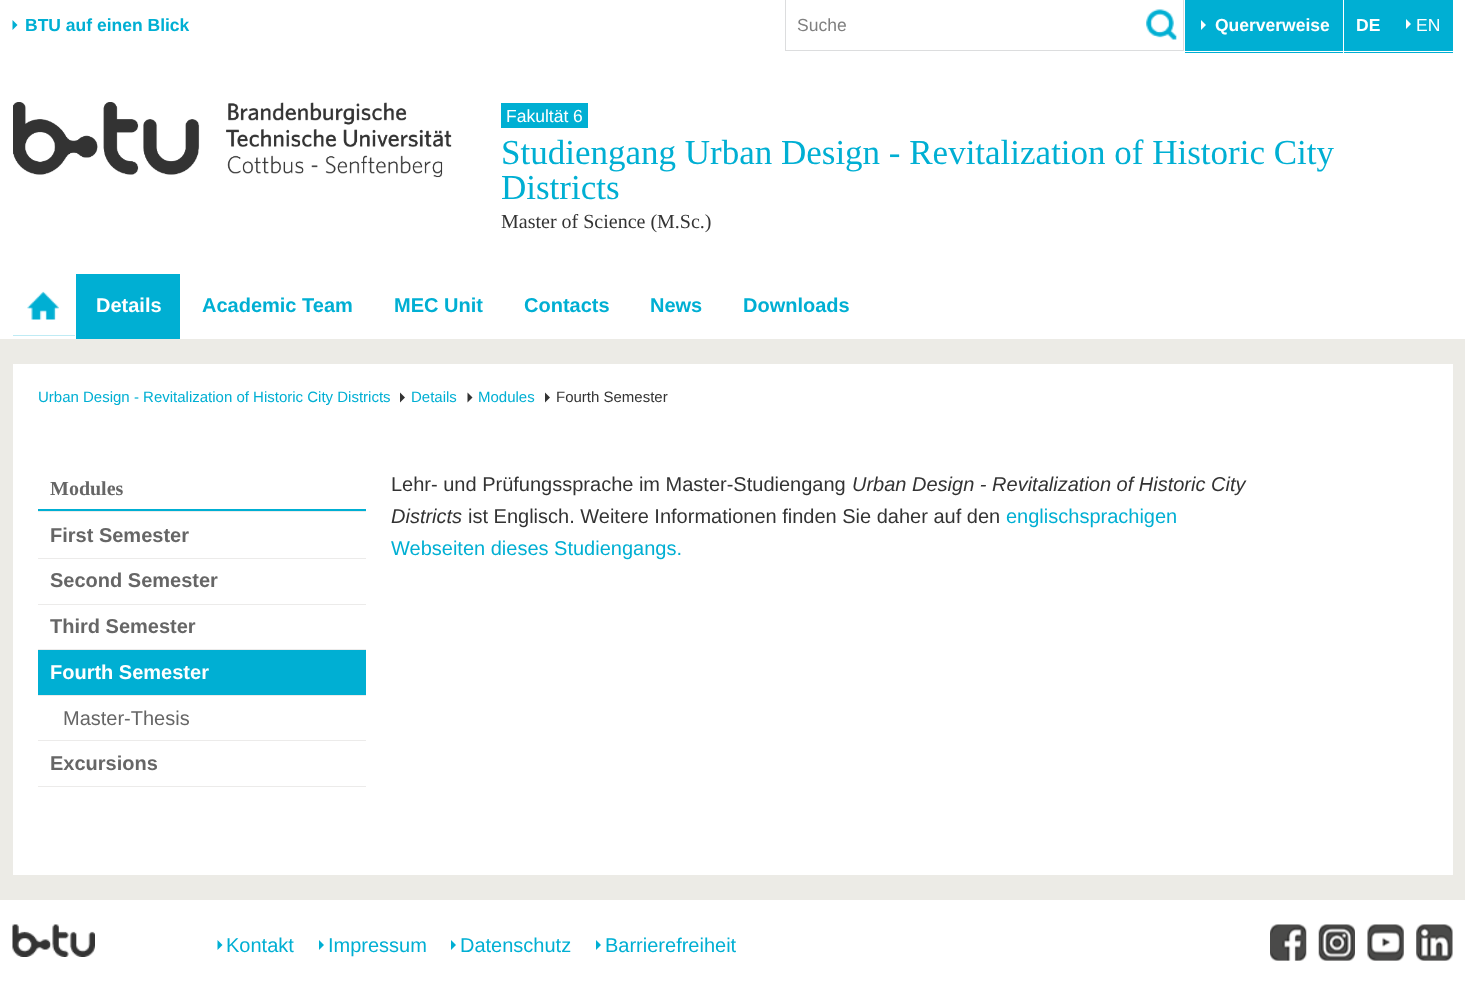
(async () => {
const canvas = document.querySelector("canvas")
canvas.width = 1465
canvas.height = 993
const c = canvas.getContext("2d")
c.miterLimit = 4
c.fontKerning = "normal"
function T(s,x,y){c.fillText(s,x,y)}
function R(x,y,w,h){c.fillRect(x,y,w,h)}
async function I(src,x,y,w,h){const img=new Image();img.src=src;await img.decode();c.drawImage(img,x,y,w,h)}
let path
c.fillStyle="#fff"
R(0,0,1465,993)
c.fillStyle="#00afd3"
path = new Path2D("M12.5 30v-10l5 5z")
c.fill(path)
c.font="bold 17.5px Liberation Sans"
T("BTU auf einen Blick",25,31)
c.strokeStyle="#dcddde"
c.strokeRect(785.5,-.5,398,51)
c.font="17.5px Liberation Sans"
c.fillStyle="#808080"
T("Suche",797,31)
await I("1.png",1146,9,31,31)
c.fillStyle="#00afd3"
R(1185,0,158,53)
c.fillStyle="#fff"
R(1185,51,158,1)
path = new Path2D("M1201 30v-10l5 5z")
c.fill(path)
c.font="bold 17.5px Liberation Sans"
T("Querverweise",1215,31)
c.fillStyle="#00afd3"
R(1344,0,109,53)
c.fillStyle="#fff"
R(1344,51,109,1)
T("DE",1356,31)
path = new Path2D("M1406 29v-10l5 5z")
c.fill(path)
c.font="17.5px Liberation Sans"
T("EN",1416,31)
await I("2.png",13,102,439,76)
c.fillStyle="#00afd3"
R(501,103,87,25)
c.fillStyle="#fff"
T("Fakultät 6",506,122)
c.font="35px Liberation Serif"
c.fillStyle="#00afd3"
T("Studiengang Urban Design - Revitalization of Historic City",501,164)
T("Districts",501,199)
c.font="20px Liberation Serif"
c.fillStyle="#333"
T("Master of Science (M.Sc.)",501,228)
c.fillStyle="#00afd3"
R(13,291,62,45)
await I("3.png",13,274,62,62)
R(76,274,104,65)
c.font="bold 20px Liberation Sans"
c.fillStyle="#fff"
T("Details",96,312)
c.fillStyle="#00afd3"
T("Academic Team",202,312)
T("MEC Unit",394,312)
T("Contacts",524,312)
T("News",650,312)
T("Downloads",743,312)
c.fillStyle="#ecebe6"
R(0,339,1465,561)
c.fillStyle="#fff"
R(13,364,1440,511)
c.font="15px Liberation Sans"
c.fillStyle="#00afd3"
T("Urban Design - Revitalization of Historic City Districts",38,402)
c.fillStyle="#333"
path = new Path2D("M400 402.5v-10l5 5z")
c.fill(path)
c.fillStyle="#00afd3"
T("Details",411,402)
c.fillStyle="#333"
path = new Path2D("M467.5 402.5v-10l5 5z")
c.fill(path)
c.fillStyle="#00afd3"
T("Modules",478,402)
c.fillStyle="#333"
path = new Path2D("M545 402.5v-10l5 5z")
c.fill(path)
T("Fourth Semester",556,402)
c.fillStyle="#00afd3"
R(38,509,328,2)
c.font="bold 20px Liberation Serif"
c.fillStyle="#666"
T("Modules",50,495)
c.fillStyle="#ecebea"
R(38,786,328,1)
R(38,511,328,1)
c.font="bold 20px Liberation Sans"
c.fillStyle="#666"
T("First Semester",50,542)
c.fillStyle="#ecebea"
R(38,558,328,1)
c.fillStyle="#666"
T("Second Semester",50,587)
c.fillStyle="#ecebea"
R(38,604,328,1)
c.fillStyle="#666"
T("Third Semester",50,633)
c.fillStyle="#ecebea"
R(38,649,328,1)
c.fillStyle="#00afd3"
R(38,650,328,45)
c.fillStyle="#fff"
T("Fourth Semester",50,679)
c.fillStyle="#ecebea"
R(38,695,328,1)
c.font="20px Liberation Sans"
c.fillStyle="#666"
T("Master-Thesis",63,725)
c.fillStyle="#ecebea"
R(38,740,328,1)
c.font="bold 20px Liberation Sans"
c.fillStyle="#666"
T("Excursions",50,770)
c.font="20px Liberation Sans"
c.fillStyle="#333"
T("Lehr- und Prüfungssprache im Master-Studiengang",391,491)
c.font="italic 20px Liberation Sans"
T("Urban Design - Revitalization of Historic City",852,491)
T("Districts",391,523)
c.font="20px Liberation Sans"
T("ist Englisch. Weitere Informationen finden Sie daher auf den",468,523)
c.fillStyle="#00afd3"
T("englischsprachigen",1006,523)
T("Webseiten dieses Studiengangs.",391,555)
await I("4.png",12,924,83,33)
path = new Path2D("M217.5 950v-10l5 5z")
c.fill(path)
T("Kontakt",226,952)
path = new Path2D("M319 950v-10l5 5z")
c.fill(path)
T("Impressum",328,952)
path = new Path2D("M451 950v-10l5 5z")
c.fill(path)
T("Datenschutz",460,952)
path = new Path2D("M596 950v-10l5 5z")
c.fill(path)
c.save()
c.beginPath()
c.rect(193,925,543,43)
c.clip()
T("Barrierefreiheit",605,952)
c.restore()
await I("5.png",1270,924,37,37)
await I("6.png",1318,924,37,37)
await I("7.png",1367,924,37,37)
await I("8.png",1416,924,37,37)
})()
